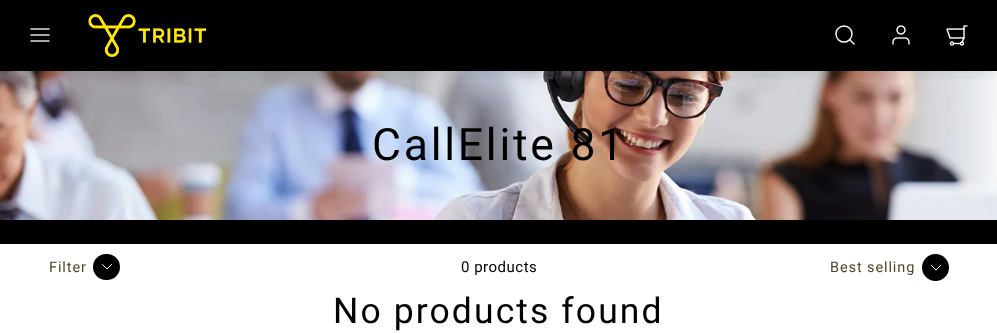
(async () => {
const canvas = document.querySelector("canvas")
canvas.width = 997
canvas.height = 334
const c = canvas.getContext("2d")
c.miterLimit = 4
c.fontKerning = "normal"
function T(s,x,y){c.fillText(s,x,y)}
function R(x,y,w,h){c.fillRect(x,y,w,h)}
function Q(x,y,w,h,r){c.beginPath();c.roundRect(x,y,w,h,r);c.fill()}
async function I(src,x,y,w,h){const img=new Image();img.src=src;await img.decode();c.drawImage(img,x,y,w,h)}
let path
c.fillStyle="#000"
R(0,0,997,334)
await I("5.png",0,71,997,149)
c.save()
c.beginPath()
c.rect(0,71,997,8)
c.clip()
c.fillStyle="#0000001a"
c.filter="blur(10px)"
c.beginPath()
c.rect(0,0,997,71)
c.fill()
c.filter="none"
c.restore()
await I("1.png",30,28,20,14)
await I("2.png",88,14,118,43)
c.beginPath()
c.arc(844,34,8,0,7)
c.strokeStyle="#fff"
c.lineWidth=1.4
c.stroke()
path = new Path2D("M854 44l-4.5-4.5")
c.lineCap="round"
c.lineJoin="round"
c.stroke(path)
await I("3.png",892,25,18,20)
await I("4.png",946,25,22,21)
c.letterSpacing="2.75px"
c.font="44.5px Roboto"
T("CallElite 81",372,160)
c.fillStyle="#fff"
R(0,244,997,90)
c.letterSpacing="0.9px"
c.font="14.5px Roboto"
c.fillStyle="#4d482e"
T("Filter",49,272)
c.fillStyle="#000"
Q(93,254,27,26,13)
path = new Path2D("M102.5 264.5l4.5 4.5l4.5-4.5")
c.lineWidth=1
c.stroke(path)
c.letterSpacing="0.5px"
c.font="15px Roboto"
T("0 products",461,272)
c.letterSpacing="0.9px"
c.font="14.5px Roboto"
c.fillStyle="#4d482e"
T("Best selling",830,272)
c.fillStyle="#000"
c.beginPath()
c.arc(935.5,267.5,13.5,0,7)
c.fill()
path = new Path2D("M931.5 265.5l4.5 4.5l4.5-4.5")
c.stroke(path)
c.letterSpacing="2.1px"
c.font="35.5px Roboto"
T("No products found",333,323)
})()
